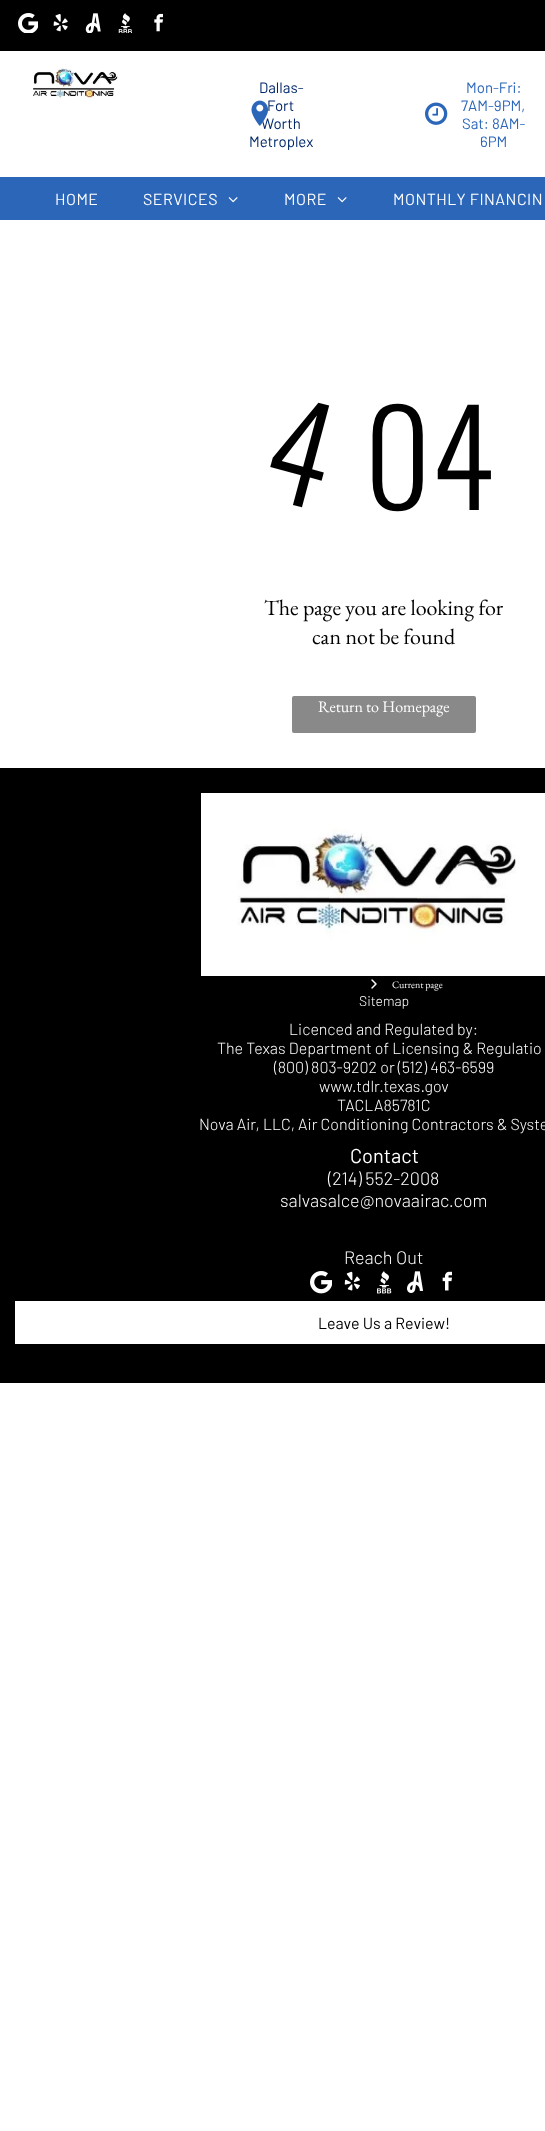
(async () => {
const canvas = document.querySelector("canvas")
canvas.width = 545
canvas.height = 2131
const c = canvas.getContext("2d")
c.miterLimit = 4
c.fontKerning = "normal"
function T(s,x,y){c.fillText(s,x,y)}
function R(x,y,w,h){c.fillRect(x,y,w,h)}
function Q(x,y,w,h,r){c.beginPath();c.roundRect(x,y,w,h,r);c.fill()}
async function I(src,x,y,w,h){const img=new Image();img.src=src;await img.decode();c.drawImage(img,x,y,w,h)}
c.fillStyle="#fff"
R(0,0,545,2131)
c.fillStyle="#000"
R(0,0,545,51)
await I("1.png",18,13,20,20)
await I("2.png",53,14,15,18)
await I("3.png",85,13,16,20)
await I("4.png",118,13,14,20)
await I("5.png",154,13,9,19)
await I("6.png",33,67,85,32)
c.font="15px Barlow"
c.fillStyle="#012768"
T("Dallas-",259,93)
T("Fort",267,111)
T("Worth",261,129)
T("Metroplex",249,147)
await I("7.png",251,100,18,26)
await I("8.png",425,102,23,23)
c.fillStyle="#2b66b9"
T("Mon-Fri:",466,93)
T("7AM-9PM,",461,111)
T("Sat: 8AM-",462,129)
T("6PM",480,147)
R(0,177,545,43)
c.letterSpacing="0.5px"
c.font="16px Barlow"
c.fillStyle="#fff"
T("HOME",55,205)
T("SERVICES",143,205)
await I("9.png",228,197,10,6)
T("MORE",284,205)
await I("9.png",337,197,10,6)
T("MONTHLY FINANCIN",393,205)
c.letterSpacing="0px"
c.font="300 130px Oswald"
c.fillStyle="#000"
c.save()
c.translate(256,495)
c.rotate(15 * Math.PI / 180)
c.fillText("4",0,0)
c.restore()
T("04",364,510)
c.font="22px EB Garamond"
T("The page you are looking for",264,615)
T("can not be found",312,644)
c.fillStyle="#898989"
Q(292,696,184,37,2)
c.font="16px EB Garamond"
c.fillStyle="#fff"
T("Return to Homepage",318,712)
c.fillStyle="#000"
R(0,768,545,615)
await I("10.png",201,793,344,183)
await I("11.png",371,979,6,10)
c.font="10px EB Garamond"
c.fillStyle="#f7f7f7"
T("Current page",392,988)
c.font="300 14px Barlow"
c.fillStyle="#fff"
T("Sitemap",359,1006)
c.font="300 16px Barlow"
T("Licenced and Regulated by:",289,1035)
T("The Texas Department of Licensing & Regulatio",217,1054)
T("(800) 803-9202 or (512) 463-6599",274,1073)
T("www.tdlr.texas.gov",319,1092)
T("TACLA85781C",337,1111)
T("Nova Air, LLC, Air Conditioning Contractors & Syste",199,1130)
c.font="20px Barlow"
T("Contact",350,1163)
c.font="300 18px Barlow"
T("(214) 552-2008",328,1185)
T("salvasalce@novaairac.com",280,1207)
T("Reach Out",344,1264)
await I("12.png",310,1271,22,23)
await I("13.png",344,1271,16,20)
await I("14.png",377,1271,15,23)
await I("15.png",407,1271,17,22)
await I("16.png",442,1271,10,20)
R(15,1301,530,43)
c.font="16px Barlow"
c.fillStyle="#000"
T("Leave Us a Review!",318,1329)
})()
